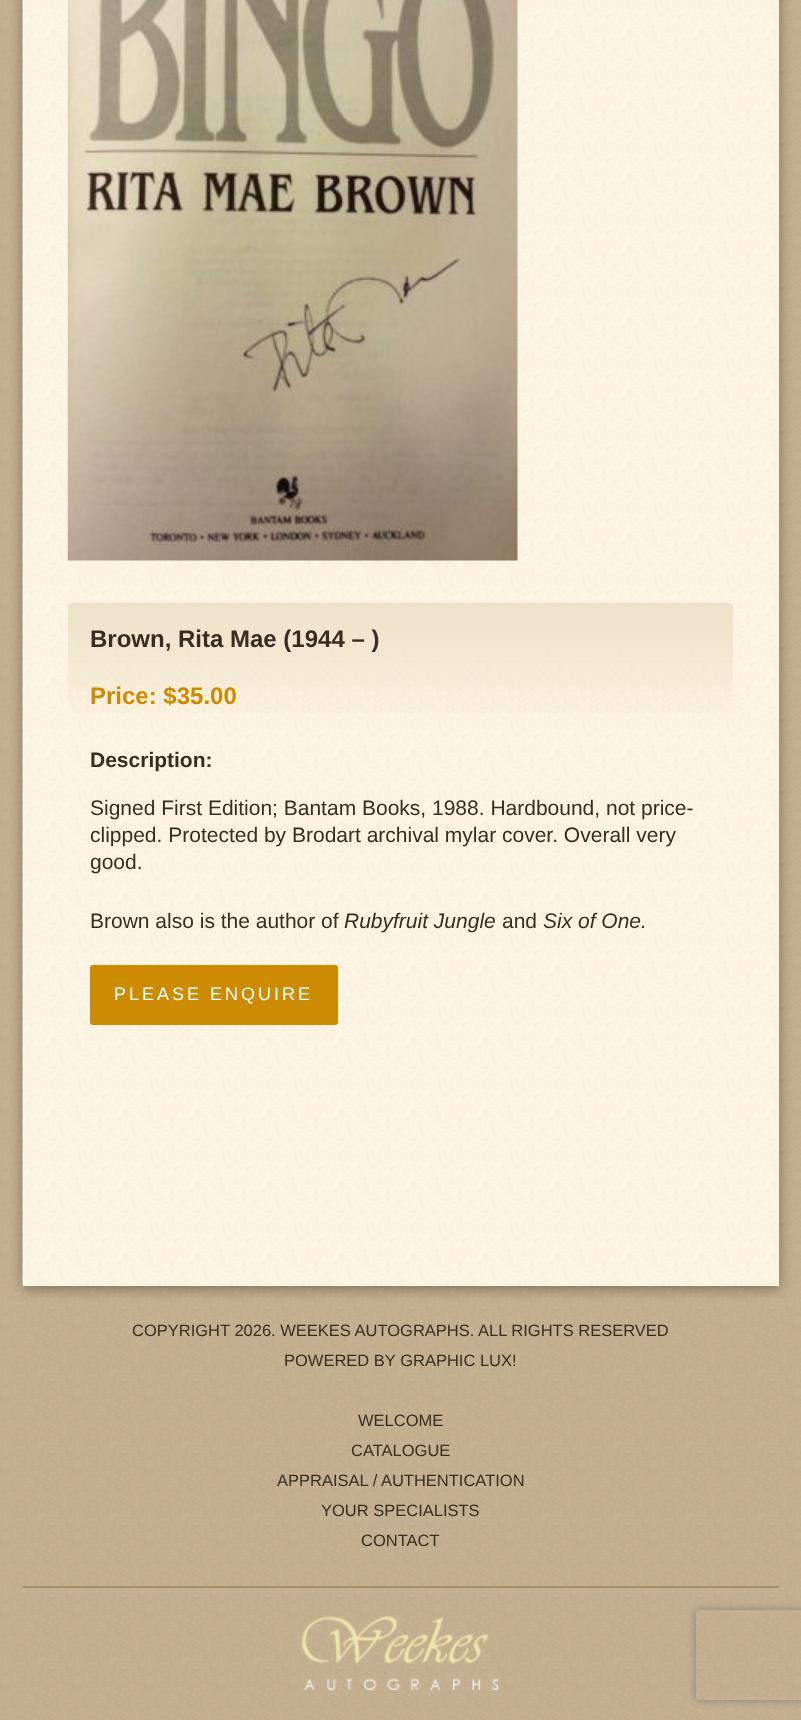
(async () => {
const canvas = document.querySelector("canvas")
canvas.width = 801
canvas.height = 1720
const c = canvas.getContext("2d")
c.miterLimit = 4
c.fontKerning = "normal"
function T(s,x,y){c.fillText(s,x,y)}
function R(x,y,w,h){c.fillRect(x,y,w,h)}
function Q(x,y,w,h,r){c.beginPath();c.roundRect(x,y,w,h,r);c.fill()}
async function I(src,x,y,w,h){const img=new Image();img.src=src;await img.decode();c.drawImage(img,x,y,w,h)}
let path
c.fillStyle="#fff"
R(0,0,801,1720)
await I("1.png",0,0,801,1720)
c.fillStyle="#0000005e"
c.filter="blur(7px)"
c.beginPath()
c.rect(23,-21,756,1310)
c.fill()
c.filter="none"
c.fillStyle="#fff6e5"
R(23,0,756,1286)
await I("2.png",22,0,757,1285)
await I("3.png",67,0,451,561)
await I("4.png",68,602,665,111)
c.font="bold 24px Liberation Sans"
c.fillStyle="#372d21"
T("Brown, Rita Mae (1944 – )",90,647)
c.fillStyle="#cc8b00"
T("Price: $35.00",90,704)
c.font="bold 21px Liberation Sans"
c.fillStyle="#372d21"
T("Description:",90,767)
c.font="21px Liberation Sans"
T("Signed First Edition; Bantam Books, 1988. Hardbound, not price-",90,815)
T("clipped. Protected by Brodart archival mylar cover. Overall very",90,842)
T("good.",90,869)
T("Brown also is the author of",90,928)
c.font="italic 21px Liberation Sans"
T("Rubyfruit Jungle",344,928)
c.font="21px Liberation Sans"
T("and",502,928)
c.font="italic 21px Liberation Sans"
T("Six of One.",543,928)
c.fillStyle="#cc8b00"
Q(90,965,248,60,3)
c.letterSpacing="3px"
c.font="18px Liberation Sans"
c.fillStyle="#fff"
T("PLEASE ENQUIRE",114,1000)
c.letterSpacing="0px"
c.font="16.5px Liberation Sans"
c.fillStyle="#372d21"
T("COPYRIGHT 2026. WEEKES AUTOGRAPHS. ALL RIGHTS RESERVED",132,1336)
T("POWERED BY GRAPHIC LUX!",284,1366)
T("WELCOME",358,1426)
T("CATALOGUE",351,1456)
T("APPRAISAL / AUTHENTICATION",277,1486)
T("YOUR SPECIALISTS",321,1516)
T("CONTACT",361,1546)
c.fillStyle="#a78e69"
R(23,1586,756,2)
await I("5.png",301,1616,199,74)
c.save()
path = new Path2D("M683 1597h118v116h-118zm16 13h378c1.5 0 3 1.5 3 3v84c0 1.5-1.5 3-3 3h-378c-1.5 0-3-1.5-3-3v-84c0-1.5 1.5-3 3-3z")
c.clip(path,"evenodd")
c.fillStyle="#808080"
c.filter="blur(4px)"
c.beginPath()
c.roundRect(696,1610,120,90,3)
c.fill()
c.filter="none"
c.restore()
})()
